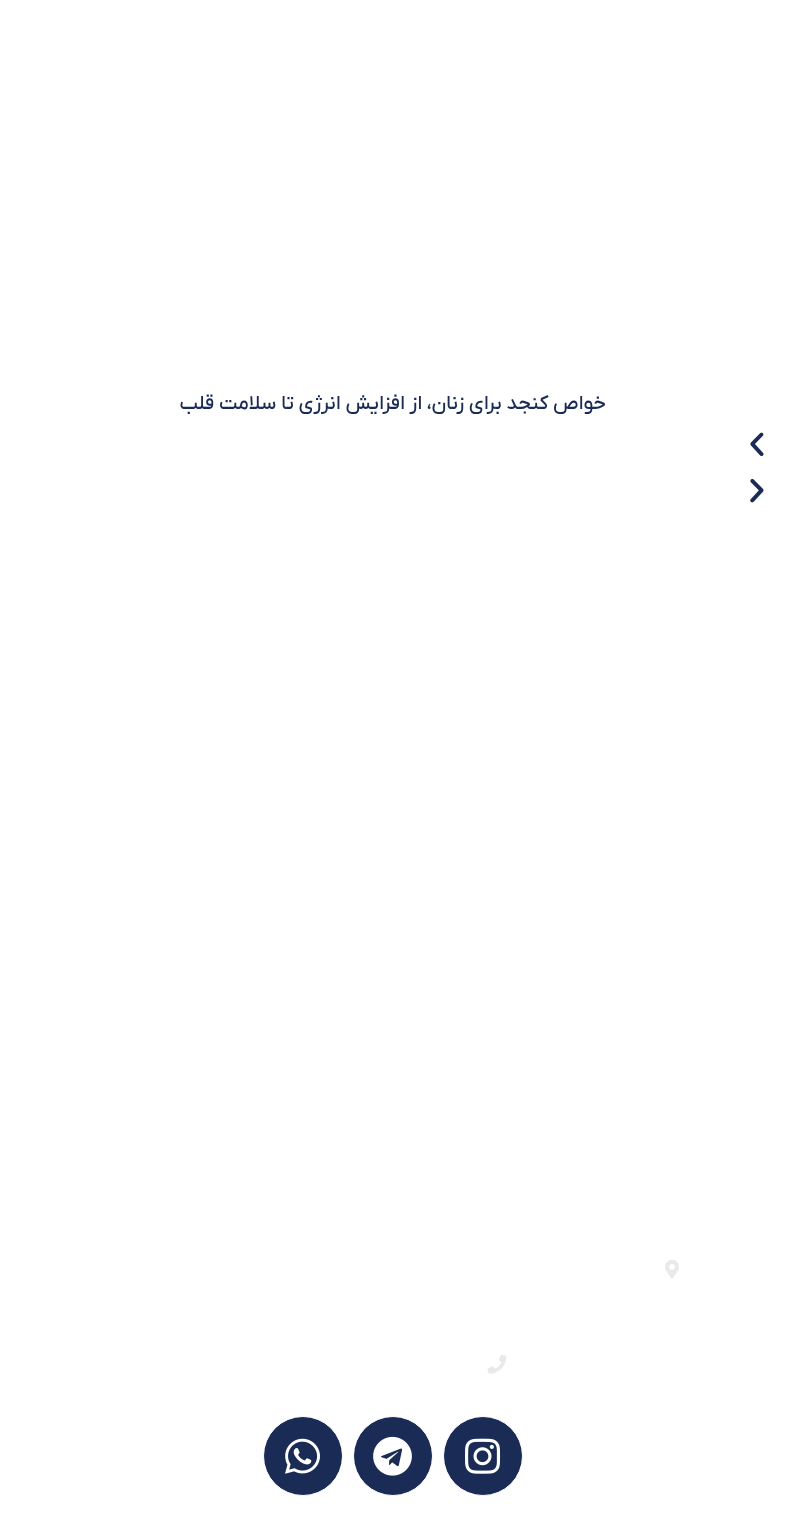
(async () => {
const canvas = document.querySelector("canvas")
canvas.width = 785
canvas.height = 1514
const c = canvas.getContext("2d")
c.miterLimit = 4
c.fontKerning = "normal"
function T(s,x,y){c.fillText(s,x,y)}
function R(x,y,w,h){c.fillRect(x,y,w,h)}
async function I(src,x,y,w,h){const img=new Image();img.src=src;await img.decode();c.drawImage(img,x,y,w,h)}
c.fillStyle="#fff"
R(0,0,785,1514)
c.direction="rtl"
c.font="500 20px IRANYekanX"
c.fillStyle="#1a2b55"
T("خواص کنجد برای زنان، از افزایش انرژی تا سلامت قلب",606,409)
await I("1.png",750,432,14,25)
await I("2.png",750,478,14,25)
await I("3.png",665,1260,14,19)
await I("4.png",487,1355,20,19)
c.beginPath()
c.arc(483,1456,39.5,0,7)
c.fill()
c.strokeStyle="#fff"
c.stroke()
await I("5.png",465,1438,36,36)
c.beginPath()
c.arc(393,1456,39.5,0,7)
c.fill()
c.stroke()
await I("6.png",373,1436,39,40)
c.beginPath()
c.arc(303,1456,39.5,0,7)
c.fill()
c.stroke()
await I("7.png",285,1438,35,36)
})()
